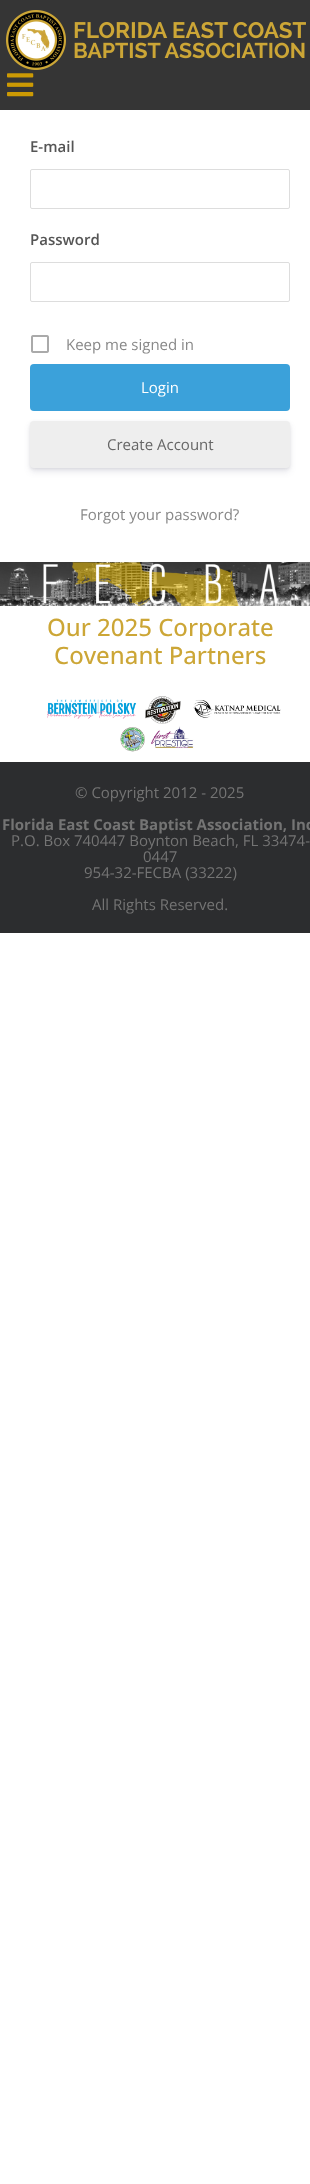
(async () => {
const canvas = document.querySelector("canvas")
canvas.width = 310
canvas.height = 2184
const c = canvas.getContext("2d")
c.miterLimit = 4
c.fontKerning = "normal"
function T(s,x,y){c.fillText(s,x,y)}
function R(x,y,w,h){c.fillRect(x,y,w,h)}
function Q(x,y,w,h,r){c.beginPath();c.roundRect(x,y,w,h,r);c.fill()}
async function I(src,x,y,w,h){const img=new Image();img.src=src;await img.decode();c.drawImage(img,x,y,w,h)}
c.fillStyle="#fff"
R(0,0,310,2184)
c.fillStyle="#353535"
R(0,0,310,110)
await I("1.png",6,10,300,60)
await I("2.png",7,73,27,24)
c.font="600 15px Open Sans"
c.fillStyle="#555"
T("E-mail",30,152)
c.beginPath()
c.roundRect(30.5,169.5,259,39,1.5)
c.strokeStyle="#ddd"
c.stroke()
T("Password",30,245)
c.beginPath()
c.roundRect(30.5,262.5,259,39,1.5)
c.stroke()
await I("3.png",31,335,18,18)
c.font="15px Open Sans"
c.fillStyle="#888"
T("Keep me signed in",66,350)
c.fillStyle="#3ba1da"
Q(30,364,260,47,4)
c.fillStyle="#fff"
T("Login",141,393)
c.fillStyle="#00000014"
c.filter="blur(1.5px)"
c.beginPath()
c.roundRect(30,422,260,47,4)
c.fill()
c.filter="none"
c.fillStyle="#32325d1c"
c.filter="blur(3px)"
c.beginPath()
c.roundRect(30,425,260,47,4)
c.fill()
c.filter="none"
c.fillStyle="#eee"
Q(30,421,260,47,4)
c.fillStyle="#666"
T("Create Account",107,450)
c.fillStyle="#888"
T("Forgot your password?",80,520)
await I("4.png",0,562,310,44)
c.font="500 24px Open Sans"
c.fillStyle="#cca636"
T("Our 2025 Corporate",47,636)
T("Covenant Partners",54,664)
await I("5.png",47,696,234,56)
c.fillStyle="#2c2d2f"
R(0,762,310,171)
c.font="15px Open Sans"
c.fillStyle="#747474"
T("© Copyright 2012 - 2025",75,798)
c.font="bold 15px Open Sans"
T("Florida East Coast Baptist Association, Inc",2,830)
c.font="15px Open Sans"
T("P.O. Box 740447 Boynton Beach, FL 33474-",11,846)
T("0447",143,862)
T("954-32-FECBA (33222)",84,878)
T("All Rights Reserved.",92,910)
})()
